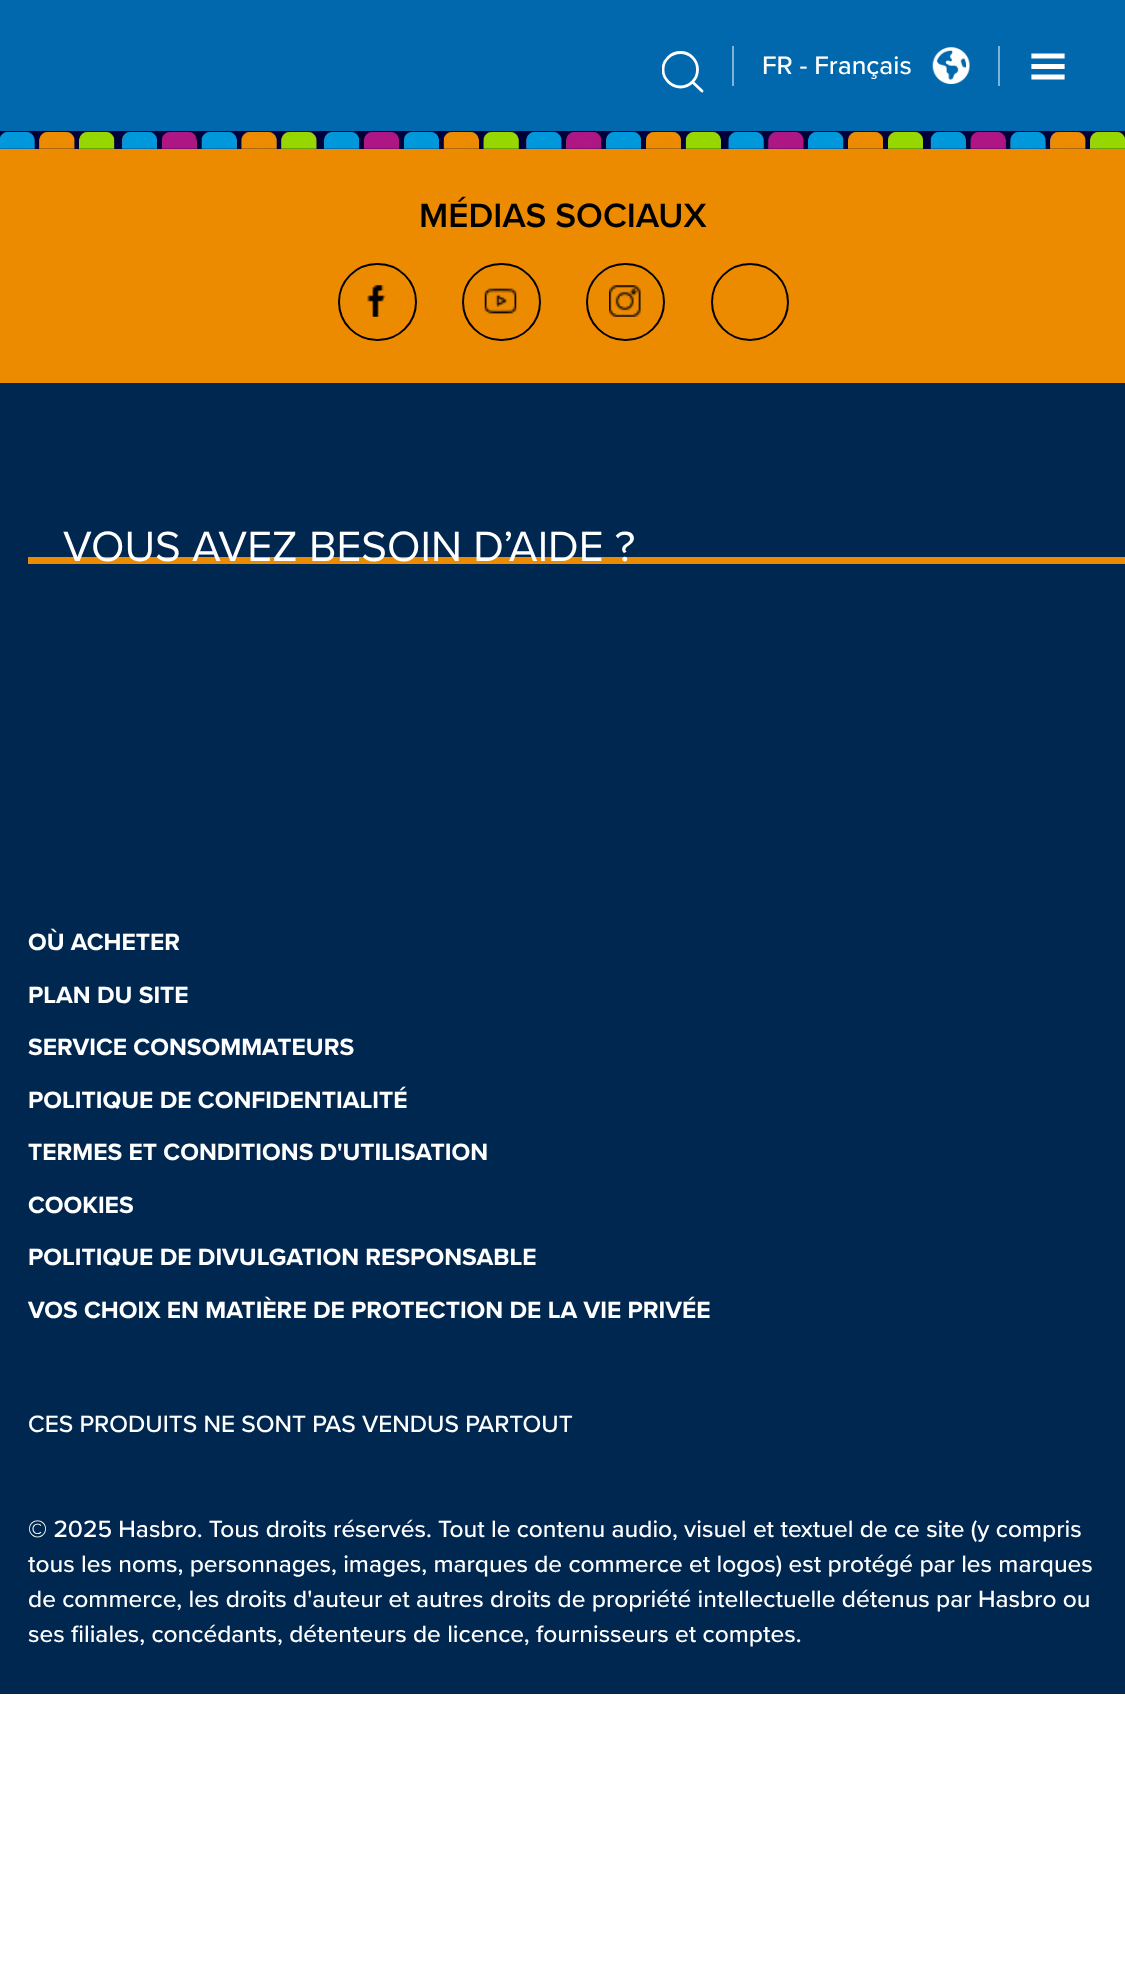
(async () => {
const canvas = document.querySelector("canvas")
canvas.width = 1125
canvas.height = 1967
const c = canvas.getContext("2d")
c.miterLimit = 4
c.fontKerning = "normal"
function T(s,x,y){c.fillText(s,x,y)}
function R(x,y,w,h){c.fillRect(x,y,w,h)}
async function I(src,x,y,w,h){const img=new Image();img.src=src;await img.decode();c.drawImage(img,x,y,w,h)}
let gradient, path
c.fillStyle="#fff"
R(0,0,1125,1967)
c.fillStyle="#0168ad"
R(0,0,1125,131)
c.save()
c.beginPath()
c.rect(662,51,42,42)
c.clip()
path = new Path2D("M702 91l-9.5-9m5-12.5c0 9.5-7.5 17.5-17 17.5c-9.5 0-17.5-8-17.5-17.5c0-9.5 8-17 17.5-17c9.5 0 17 7.5 17 17z")
c.strokeStyle="#fff"
c.lineWidth=2.8
c.lineCap="round"
c.lineJoin="round"
c.stroke(path)
c.restore()
c.fillStyle="#80b4d6"
R(732,46,2,40)
c.font="500 26.25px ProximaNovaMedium"
c.fillStyle="#fff"
T("FR - Français",762,74)
await I("1.png",932,47,38,37)
c.fillStyle="#80b4d6"
R(998,46,2,40)
path = new Path2D("M1034 56h28m-28 10.5h28m-28 10.5h28")
c.strokeStyle="#fff"
c.lineWidth=5.2
c.lineCap="square"
c.lineJoin="round"
c.stroke(path)
gradient = c.createRadialGradient(563,38080,0,563,38080,28)
gradient.addColorStop(0,"#0066af")
gradient.addColorStop(1,"#000038")
c.fillStyle = gradient
c.beginPath()
c.rect(0,131,1125,18)
c.save()
c.clip()
c.scale(1,0.1 / 28)
c.fillRect(0,0,1125,550760)
c.restore()
await I("2.png",0,131,1125,18)
c.fillStyle="#ed8b00"
R(0,149,1125,234)
c.font="600 35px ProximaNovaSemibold"
c.fillStyle="#000"
T("MÉDIAS SOCIAUX",419,227)
c.beginPath()
c.roundRect(339,264,77,76,38)
c.strokeStyle="#000"
c.lineWidth=2
c.lineJoin="miter"
c.stroke()
await I("3.png",367,285,19,32)
c.beginPath()
c.roundRect(463,264,77,76,38)
c.stroke()
await I("4.png",484,288,33,26)
c.beginPath()
c.roundRect(587,264,77,76,38)
c.stroke()
await I("5.png",609,285,32,32)
c.beginPath()
c.arc(750,302,38,0,7)
c.stroke()
c.fillStyle="#002750"
R(0,383,1125,1311)
c.fillStyle="#ed8b00"
R(28,557,1097,7)
c.font="43.75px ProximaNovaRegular"
c.fillStyle="#fff"
T("VOUS AVEZ BESOIN D’AIDE ?",63,561)
c.font="bold 24.5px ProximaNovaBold"
T("OÙ ACHETER",28,950)
T("PLAN DU SITE",28,1003)
T("SERVICE CONSOMMATEURS",28,1055)
T("POLITIQUE DE CONFIDENTIALITÉ",28,1108)
T("TERMES ET CONDITIONS D'UTILISATION",28,1160)
T("COOKIES",28,1213)
T("POLITIQUE DE DIVULGATION RESPONSABLE",28,1265)
T("VOS CHOIX EN MATIÈRE DE PROTECTION DE LA VIE PRIVÉE",28,1318)
c.font="500 24.5px ProximaNovaMedium"
T("CES PRODUITS NE SONT PAS VENDUS PARTOUT",28,1432)
T("© 2025 Hasbro. Tous droits réservés. Tout le contenu audio, visuel et textuel de ce site (y compris",28,1537)
T("tous les noms, personnages, images, marques de commerce et logos) est protégé par les marques",28,1572)
T("de commerce, les droits d'auteur et autres droits de propriété intellectuelle détenus par Hasbro ou",28,1607)
T("ses filiales, concédants, détenteurs de licence, fournisseurs et comptes.",28,1642)
})()
